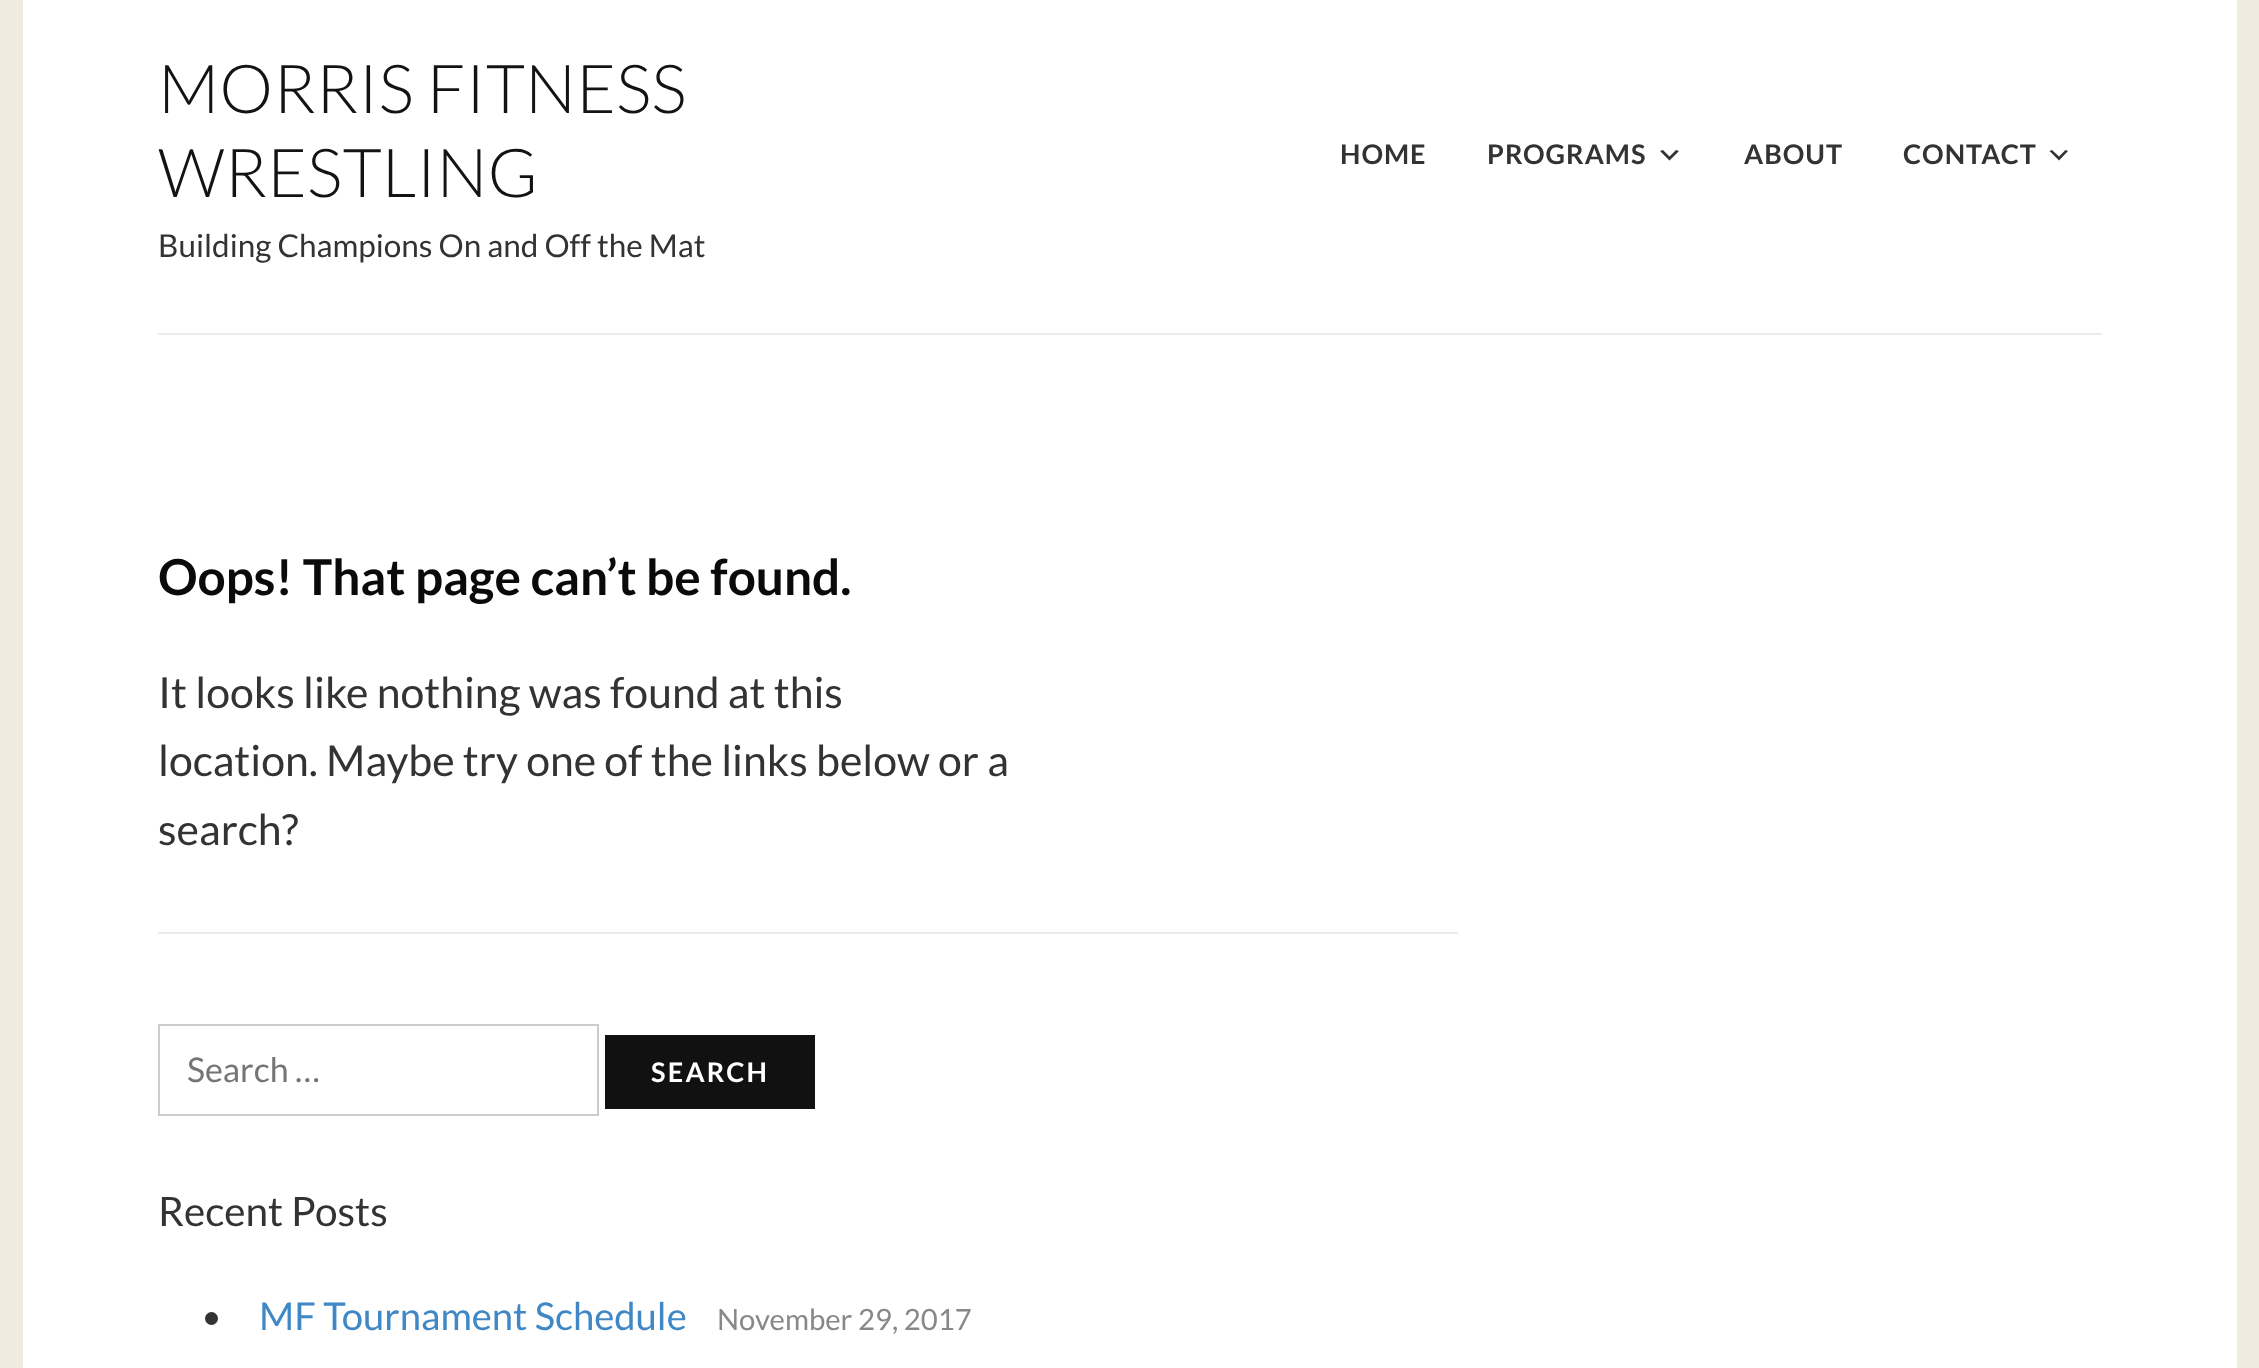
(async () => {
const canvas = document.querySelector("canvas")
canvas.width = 2259
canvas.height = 1368
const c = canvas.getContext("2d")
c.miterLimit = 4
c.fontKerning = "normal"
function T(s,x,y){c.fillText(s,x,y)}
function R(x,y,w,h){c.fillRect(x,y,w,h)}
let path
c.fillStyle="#f1eadf"
R(0,0,2259,1368)
c.fillStyle="#fff"
R(23,0,2214,1368)
c.font="300 67.5px Lato"
c.fillStyle="#131313"
T("MORRIS FITNESS",158,113)
T("WRESTLING",158,197)
c.font="31.5px Lato"
c.fillStyle="#333"
T("Building Champions On and Off the Mat",158,257)
c.letterSpacing="1px"
c.font="bold 27px Lato"
T("HOME",1340,164)
T("PROGRAMS",1487,164)
path = new Path2D("M1663 150l6.5 6.5l6.5-6.5l3 1l-9.5 9.5l-9.5-9.5z")
c.fill(path)
T("ABOUT",1744,164)
T("CONTACT",1903,164)
path = new Path2D("M2052 150l7 6.5l6.5-6.5l2.5 1l-9 9.5l-9.5-9.5z")
c.fill(path)
c.fillStyle="#ebebeb"
R(158,333,1944,2)
R(158,932,1300,2)
c.letterSpacing="0px"
c.font="bold 49.5px Lato"
c.fillStyle="#0a0a08"
T("Oops! That page can’t be found.",158,595)
c.font="42.75px Lato"
c.fillStyle="#333"
T("It looks like nothing was found at this",158,708)
T("location. Maybe try one of the links below or a",158,776)
T("search?",158,845)
c.strokeStyle="#ccc"
c.lineWidth=2
c.strokeRect(159,1025,439,90)
c.font="34px Lato"
c.fillStyle="#757575"
T("Search …",187,1082)
c.fillStyle="#111"
R(605,1035,210,74)
c.letterSpacing="2.25px"
c.font="bold 27px Lato"
c.fillStyle="#fff"
T("SEARCH",651,1082)
c.letterSpacing="0px"
c.font="40.5px Lato"
c.fillStyle="#333"
T("Recent Posts",158,1226)
c.beginPath()
c.arc(211.5,1318.5,6.5,0,7)
c.fill()
c.font="38.25px Lato"
c.fillStyle="#3f88c5"
T("MF Tournament Schedule",259,1330)
c.font="29.25px Lato"
c.fillStyle="#888"
T("November 29, 2017",717,1330)
})()
